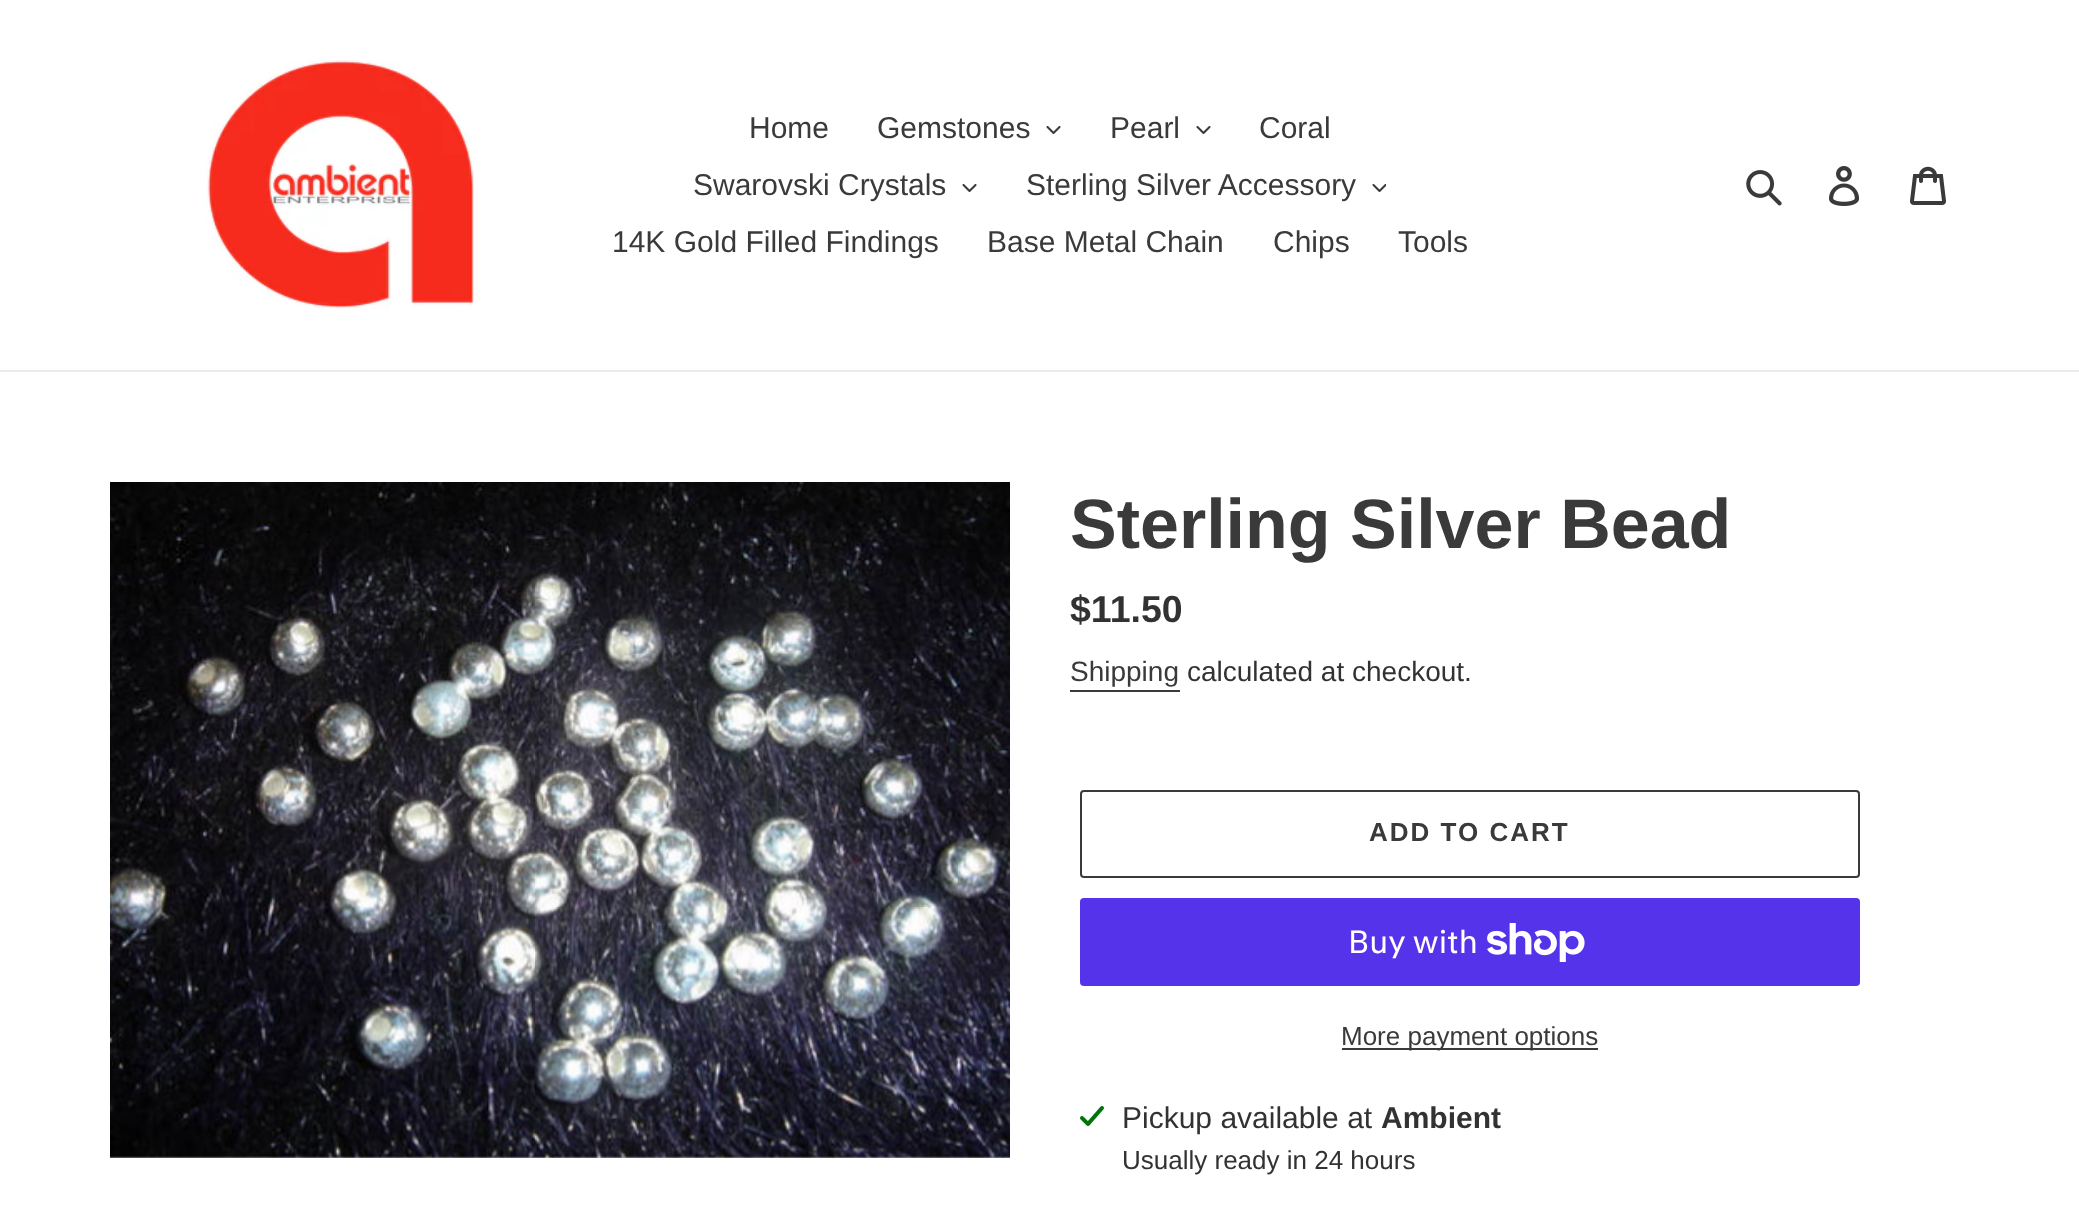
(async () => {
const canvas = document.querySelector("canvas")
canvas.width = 2079
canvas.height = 1207
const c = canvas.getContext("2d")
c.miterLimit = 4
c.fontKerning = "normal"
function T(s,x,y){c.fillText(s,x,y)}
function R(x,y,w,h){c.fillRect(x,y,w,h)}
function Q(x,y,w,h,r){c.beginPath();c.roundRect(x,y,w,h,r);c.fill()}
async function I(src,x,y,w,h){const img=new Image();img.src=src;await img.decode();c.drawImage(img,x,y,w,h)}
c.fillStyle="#fff"
R(0,0,2079,1207)
c.fillStyle="#ebebeb"
R(0,370,2079,2)
await I("1.png",203,60,271,249)
c.font="30px Liberation Sans"
c.fillStyle="#3a3a3a"
T("Home",749,138)
T("Gemstones",877,138)
await I("2.png",1046,126,15,8)
T("Pearl",1110,138)
await I("2.png",1196,126,15,8)
T("Coral",1259,138)
T("Swarovski Crystals",693,195)
await I("2.png",962,184,15,8)
T("Sterling Silver Accessory",1026,195)
await I("3.png",1372,184,14,8)
T("14K Gold Filled Findings",612,252)
T("Base Metal Chain",987,252)
T("Chips",1273,252)
T("Tools",1398,252)
await I("4.png",1746,170,36,36)
await I("5.png",1829,166,31,40)
await I("6.png",1910,166,36,39)
await I("7.png",110,482,900,676)
c.font="bold 70px Liberation Sans"
T("Sterling Silver Bead",1070,548)
c.font="bold 37.5px Liberation Sans"
c.fillStyle="#333232"
T("$11.50",1070,622)
c.font="28px Liberation Sans"
c.fillStyle="#3a3a3a"
T("Shipping",1070,681)
R(1070,690,110,2)
c.fillStyle="#333232"
T("calculated at checkout.",1187,681)
c.beginPath()
c.roundRect(1081,791,778,86,3)
c.strokeStyle="#3a3a3a"
c.lineWidth=2
c.stroke()
c.letterSpacing="2px"
c.font="bold 26px Liberation Sans"
c.fillStyle="#3a3a3a"
T("ADD TO CART",1369,841)
c.fillStyle="#5433eb"
Q(1080,898,780,88,4)
c.letterSpacing="0px"
c.font="32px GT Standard"
c.fillStyle="#fff"
T("Buy with",1348,953)
await I("8.png",1487,923,98,39)
c.fillStyle="#3a3a3a"
R(1342,1048,256,2)
c.font="26px Liberation Sans"
T("More payment options",1341,1045)
await I("9.png",1080,1106,24,20)
c.font="30px Liberation Sans"
c.fillStyle="#333232"
T("Pickup available at",1122,1128)
c.font="bold 30px Liberation Sans"
T("Ambient",1381,1128)
c.font="26px Liberation Sans"
T("Usually ready in 24 hours",1122,1169)
})()
